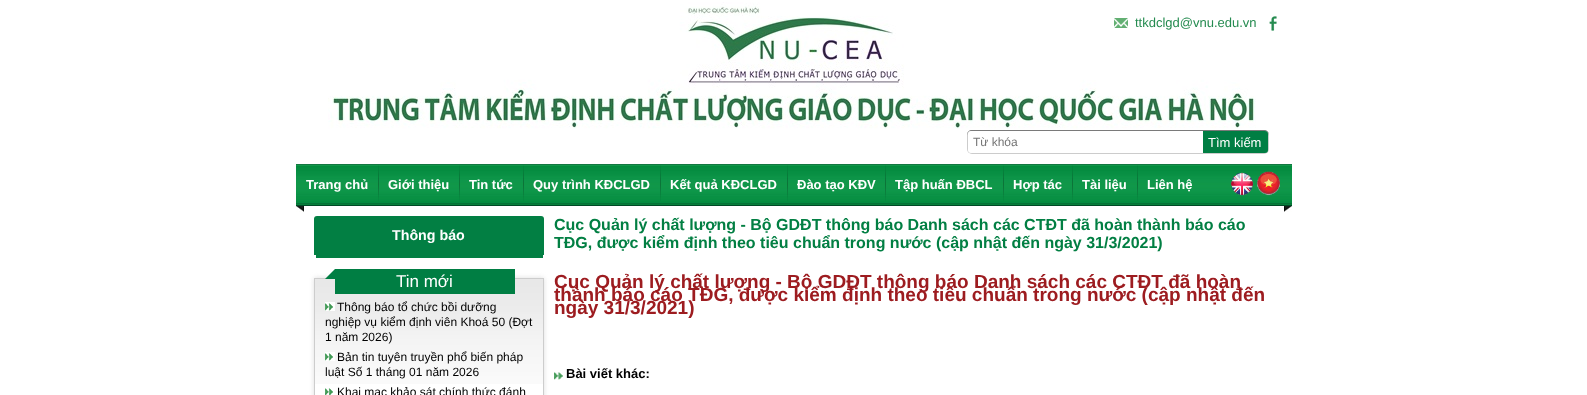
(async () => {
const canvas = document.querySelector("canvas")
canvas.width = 1587
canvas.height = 395
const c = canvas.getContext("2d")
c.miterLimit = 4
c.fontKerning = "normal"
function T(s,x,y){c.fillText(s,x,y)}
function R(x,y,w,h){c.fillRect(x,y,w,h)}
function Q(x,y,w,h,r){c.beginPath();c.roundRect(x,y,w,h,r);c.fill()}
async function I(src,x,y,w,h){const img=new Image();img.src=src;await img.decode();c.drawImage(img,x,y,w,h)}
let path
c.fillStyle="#fff"
R(0,0,1587,395)
await I("1.png",328,2,928,127)
await I("2.png",1114,18,14,10)
c.font="13px Liberation Sans"
c.fillStyle="#258b50"
T("ttkdclgd@vnu.edu.vn",1135,27)
await I("3.png",1269,16,8,15)
c.fillStyle="#ccc"
Q(967,130,302,24,5)
c.fillStyle="#00000066"
path = new Path2D("M972 131h292c3 0 5 2 5 5v-1c0-3-2-5-5-5h-292c-3 0-5 2-5 5v1c0-3 2-5 5-5z")
c.fill(path)
c.fillStyle="#fff"
c.beginPath()
c.roundRect(968,131,235,22,[3,0,0,3])
c.fill()
c.font="12px Liberation Sans"
c.fillStyle="#757575"
T("Từ khóa",973,146)
c.fillStyle="#007e43"
c.beginPath()
c.roundRect(1203,131,65,22,[0,3,3,0])
c.fill()
c.font="13px Liberation Sans"
c.fillStyle="#fff"
T("Tìm kiếm",1208,147)
await I("4.png",296,164,996,42)
c.font="bold 13px Liberation Sans"
T("Trang chủ",306,189)
await I("5.png",378,165,1,36)
T("Giới thiệu",388,189)
await I("5.png",459,165,1,36)
T("Tin tức",469,189)
await I("5.png",523,165,1,36)
T("Quy trình KĐCLGD",533,189)
await I("5.png",660,165,1,36)
T("Kết quả KĐCLGD",670,189)
await I("5.png",787,165,1,36)
T("Đào tạo KĐV",797,189)
await I("5.png",885,165,1,36)
T("Tập huấn ĐBCL",895,189)
await I("5.png",1003,165,1,36)
T("Hợp tác",1013,189)
await I("5.png",1072,165,1,36)
T("Tài liệu",1082,189)
await I("5.png",1137,165,1,36)
T("Liên hệ",1147,189)
await I("6.png",1231,172,23,24)
await I("7.png",1257,171,23,25)
await I("8.png",296,206,8,6)
await I("9.png",1284,206,8,6)
c.fillStyle="#027f43"
R(316,255,227,3)
c.beginPath()
c.roundRect(314,216,230,39,[3,3,0,0])
c.fill()
c.font="bold 14.25px Liberation Sans"
c.fillStyle="#fff"
T("Thông báo",392,240)
c.save()
path = new Path2D("M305 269h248v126h-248zm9 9h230v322h-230z")
c.clip(path,"evenodd")
c.fillStyle="#ddd"
c.filter="blur(2.5px)"
c.beginPath()
c.rect(314,278,230,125)
c.fill()
c.filter="none"
c.restore()
await I("10.png",315,279,228,105)
c.strokeStyle="#cdcdcd"
c.strokeRect(314.5,278.5,229,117)
c.fillStyle="#007e43"
R(335,269,180,25)
path = new Path2D("M335 279h-10l10-10z")
c.fill(path)
c.font="17px Liberation Sans"
c.fillStyle="#fff"
T("Tin mới",396,287)
await I("11.png",325,302,10,9)
c.font="12px Liberation Sans"
c.fillStyle="#000"
T("Thông báo tổ chức bồi dưỡng",337,311)
T("nghiệp vụ kiểm định viên Khoá 50 (Đợt",325,326)
T("1 năm 2026)",325,341)
await I("11.png",325,352,10,9)
T("Bản tin tuyên truyền phổ biến pháp",337,361)
T("luật Số 1 tháng 01 năm 2026",325,376)
await I("12.png",325,388,8,7)
T("Khai mạc khảo sát chính thức đánh",337,396)
c.font="bold 16px Liberation Sans"
c.fillStyle="#027f43"
T("Cục Quản lý chất lượng - Bộ GDĐT thông báo Danh sách các CTĐT đã hoàn thành báo cáo",554,230)
T("TĐG, được kiểm định theo tiêu chuẩn trong nước (cập nhật đến ngày 31/3/2021)",554,248)
c.font="bold 19px Liberation Sans"
c.fillStyle="#9d1c20"
T("Cục Quản lý chất lượng - Bộ GDĐT thông báo Danh sách các CTĐT đã hoàn",554,288)
T("thành báo cáo TĐG, được kiểm định theo tiêu chuẩn trong nước (cập nhật đến",554,301)
T("ngày 31/3/2021)",554,314)
await I("13.png",554,372,9,8)
c.font="bold 13px Liberation Sans"
c.fillStyle="#000"
T("Bài viết khác:",566,378)
})()
